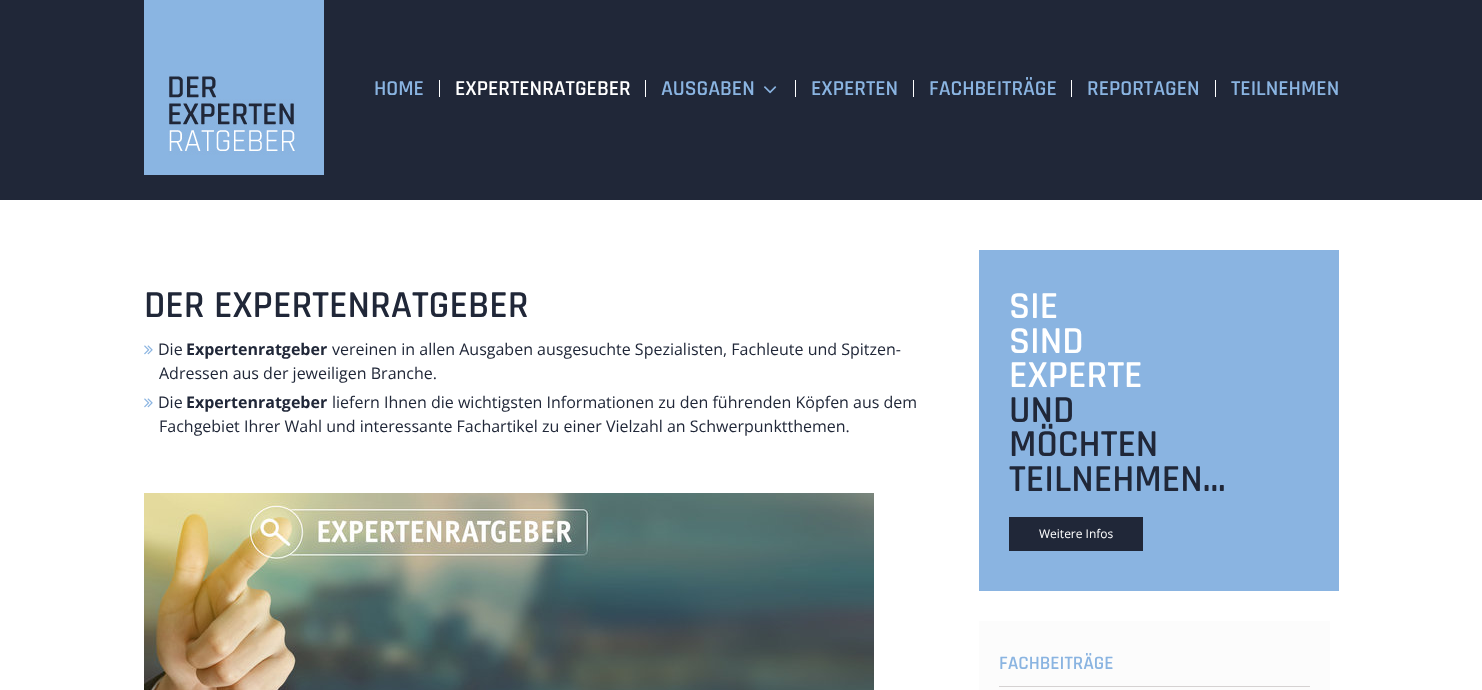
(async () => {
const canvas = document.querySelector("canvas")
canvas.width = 1482
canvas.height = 690
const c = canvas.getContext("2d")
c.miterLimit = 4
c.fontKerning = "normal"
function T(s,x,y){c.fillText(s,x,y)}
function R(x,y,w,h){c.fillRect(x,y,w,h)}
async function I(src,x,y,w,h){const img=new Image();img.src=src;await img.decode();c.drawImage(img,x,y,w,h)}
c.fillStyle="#fff"
R(0,0,1482,690)
c.fillStyle="#202738"
R(0,0,1482,200)
await I("1.png",144,0,180,175)
c.fillStyle="#fff"
R(439,80,1,17)
c.font="600 21.5px Rajdhani"
c.fillStyle="#8ab4e1"
T("HOME",374,95)
c.fillStyle="#fff"
R(645,80,1,17)
T("EXPERTENRATGEBER",455,95)
R(795,80,1,17)
c.fillStyle="#8ab4e1"
T("AUSGABEN",661,95)
await I("2.png",764,86,13,8)
c.fillStyle="#fff"
R(913,80,1,17)
c.fillStyle="#8ab4e1"
T("EXPERTEN",811,95)
c.fillStyle="#fff"
R(1071,80,1,17)
c.fillStyle="#8ab4e1"
T("FACHBEITRÄGE",929,95)
c.fillStyle="#fff"
R(1215,80,1,17)
c.fillStyle="#8ab4e1"
T("REPORTAGEN",1087,95)
T("TEILNEHMEN",1231,95)
c.font="600 38.5px Rajdhani"
c.fillStyle="#202738"
T("DER EXPERTENRATGEBER",144,317)
await I("3.png",144,345,9,10)
c.font="16px Open Sans"
T("Die",158,355)
c.font="bold 16px Open Sans"
T("Expertenratgeber",186,355)
c.font="16px Open Sans"
T("vereinen in allen Ausgaben ausgesuchte Spezialisten, Fachleute und Spitzen-",332,355)
T("Adressen aus der jeweiligen Branche.",159,379)
await I("3.png",144,398,9,10)
T("Die",158,408)
c.font="bold 16px Open Sans"
T("Expertenratgeber",186,408)
c.font="16px Open Sans"
T("liefern Ihnen die wichtigsten Informationen zu den führenden Köpfen aus dem",332,408)
T("Fachgebiet Ihrer Wahl und interessante Fachartikel zu einer Vielzahl an Schwerpunktthemen.",159,432)
await I("4.png",144,493,730,197)
c.fillStyle="#8ab4e1"
R(979,250,360,341)
c.font="600 38.5px Rajdhani"
c.fillStyle="#fff"
T("SIE",1009,318)
T("SIND",1009,353)
T("EXPERTE",1009,387)
c.fillStyle="#202738"
T("UND",1009,422)
T("MÖCHTEN",1009,456)
T("TEILNEHMEN...",1009,491)
R(1009,517,134,34)
c.font="12px Open Sans"
c.fillStyle="#fff"
T("Weitere Infos",1039,538)
c.fillStyle="#fcfcfc"
R(979,621,351,69)
c.fillStyle="#d5d2d2"
R(999,686,311,1)
c.font="600 19.25px Rajdhani"
c.fillStyle="#8ab4e1"
T("FACHBEITRÄGE",999,669)
})()
